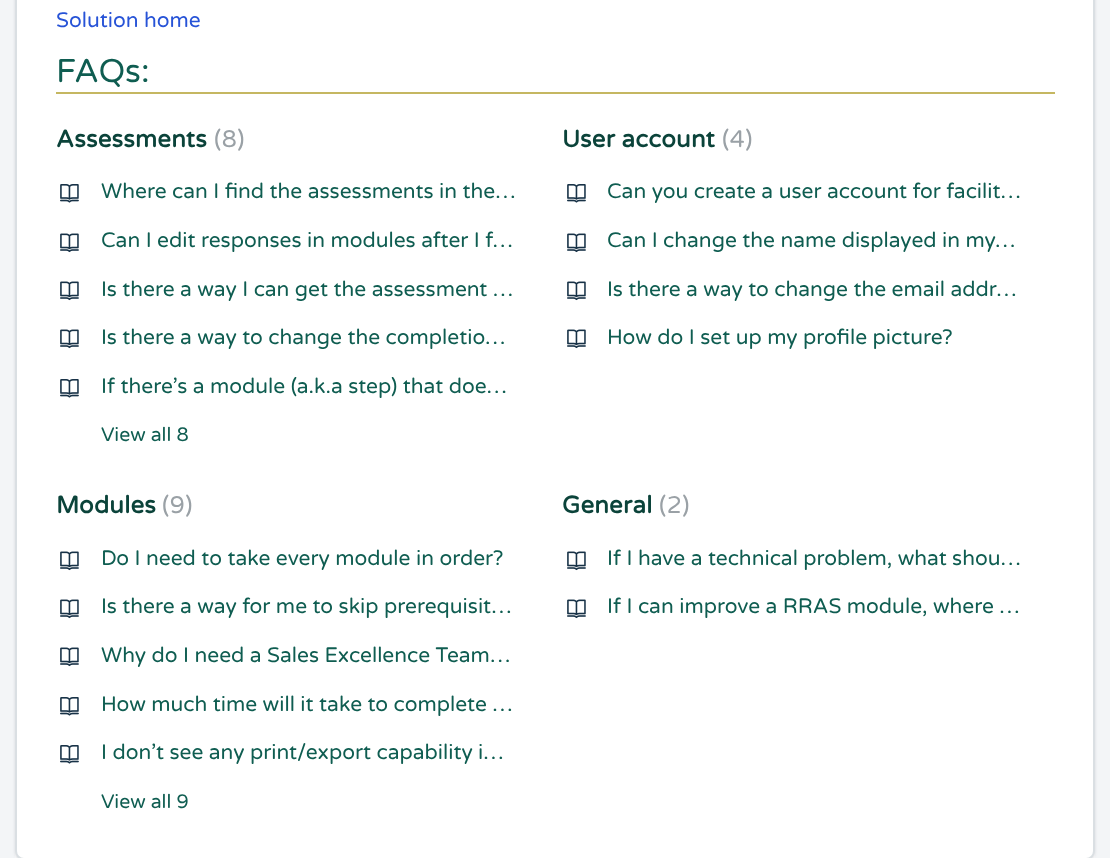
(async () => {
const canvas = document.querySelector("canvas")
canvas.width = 1110
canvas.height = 858
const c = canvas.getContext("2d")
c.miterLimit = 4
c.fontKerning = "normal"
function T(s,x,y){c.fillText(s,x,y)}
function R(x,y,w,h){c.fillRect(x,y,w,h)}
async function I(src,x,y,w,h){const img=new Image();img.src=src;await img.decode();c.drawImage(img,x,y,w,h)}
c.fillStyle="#f3f5f7"
R(0,0,1110,858)
c.fillStyle="#f8f9fa"
R(15,851,1080,7)
c.fillStyle="#3f3f4426"
c.filter="blur(1.5px)"
c.beginPath()
c.roundRect(15,-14,1080,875,9)
c.fill()
c.filter="none"
c.fillStyle="#fff"
c.beginPath()
c.roundRect(16,-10,1078,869,8)
c.fill()
c.strokeStyle="#dadfe3"
c.lineWidth=2
c.stroke()
c.font="21px Varela Round"
c.fillStyle="#2753d7"
T("Solution home",56,27)
c.fillStyle="#c5b761"
R(56,92,999,2)
c.font="33px Varela Round"
c.fillStyle="#0f5d51"
T("FAQs:",56,82)
c.letterSpacing="0.25px"
c.font="bold 24px Varela Round"
c.fillStyle="#0b433a"
T("Assessments",56,147)
c.font="24px Varela Round"
c.fillStyle="#9aa1a6"
T("(8)",214,147)
await I("1.png",60,184,19,19)
c.letterSpacing="0px"
c.font="21px Varela Round"
c.fillStyle="#0f5d51"
T("Where can I find the assessments in the…",101,198)
await I("2.png",60,233,19,20)
T("Can I edit responses in modules after I f…",101,247)
await I("2.png",60,281,19,20)
T("Is there a way I can get the assessment …",101,296)
await I("2.png",60,329,19,20)
T("Is there a way to change the completio…",101,344)
await I("1.png",60,379,19,19)
T("If there’s a module (a.k.a step) that doe…",101,393)
c.font="19.5px Varela Round"
T("View all 8",101,441)
c.letterSpacing="0.25px"
c.font="bold 24px Varela Round"
c.fillStyle="#0b433a"
T("User account",562,147)
c.font="24px Varela Round"
c.fillStyle="#9aa1a6"
T("(4)",722,147)
await I("1.png",567,184,19,19)
c.letterSpacing="0px"
c.font="21px Varela Round"
c.fillStyle="#0f5d51"
T("Can you create a user account for facilit…",607,198)
await I("2.png",567,233,19,20)
T("Can I change the name displayed in my…",607,247)
await I("2.png",567,281,19,20)
T("Is there a way to change the email addr…",607,296)
await I("2.png",567,329,19,20)
T("How do I set up my profile picture?",607,344)
c.letterSpacing="0.25px"
c.font="bold 24px Varela Round"
c.fillStyle="#0b433a"
T("Modules",56,513)
c.font="24px Varela Round"
c.fillStyle="#9aa1a6"
T("(9)",162,513)
await I("2.png",60,551,19,20)
c.letterSpacing="0px"
c.font="21px Varela Round"
c.fillStyle="#0f5d51"
T("Do I need to take every module in order?",101,565)
await I("2.png",60,599,19,20)
T("Is there a way for me to skip prerequisit…",101,613)
await I("2.png",60,647,19,20)
T("Why do I need a Sales Excellence Team…",101,662)
await I("1.png",60,697,19,19)
T("How much time will it take to complete …",101,711)
await I("1.png",60,745,19,19)
T("I don’t see any print/export capability i…",101,759)
c.font="19.5px Varela Round"
T("View all 9",101,808)
c.letterSpacing="0.25px"
c.font="bold 24px Varela Round"
c.fillStyle="#0b433a"
T("General",562,513)
c.font="24px Varela Round"
c.fillStyle="#9aa1a6"
T("(2)",659,513)
await I("2.png",567,551,19,20)
c.letterSpacing="0px"
c.font="21px Varela Round"
c.fillStyle="#0f5d51"
T("If I have a technical problem, what shou…",607,565)
await I("2.png",567,599,19,20)
T("If I can improve a RRAS module, where …",607,613)
})()
